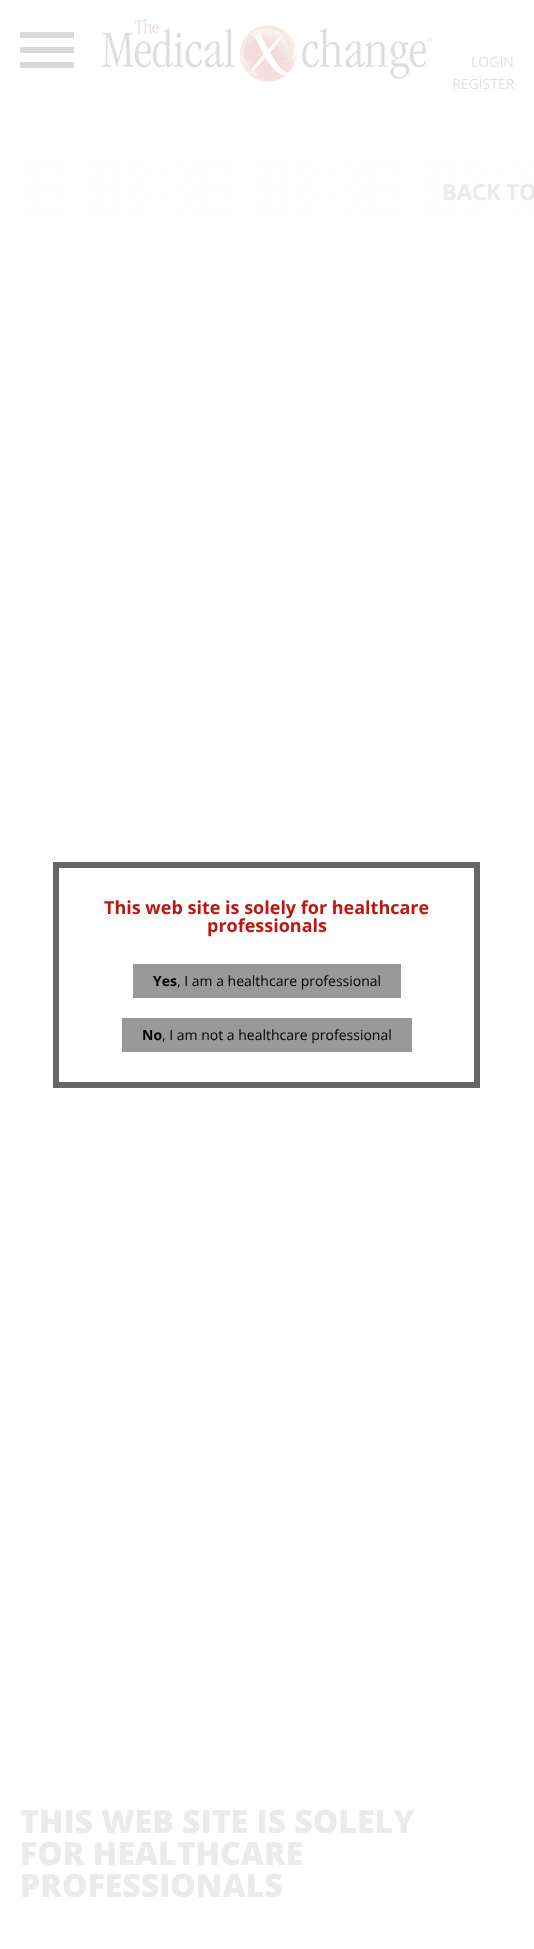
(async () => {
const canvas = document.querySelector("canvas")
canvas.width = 534
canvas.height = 1949
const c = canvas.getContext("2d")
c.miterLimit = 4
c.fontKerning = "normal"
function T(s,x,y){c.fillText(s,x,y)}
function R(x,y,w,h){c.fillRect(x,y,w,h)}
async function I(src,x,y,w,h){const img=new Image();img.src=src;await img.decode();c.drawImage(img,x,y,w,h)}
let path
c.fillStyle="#fff"
R(0,0,534,1949)
c.fillStyle="#fafafa"
R(0,99,534,1)
c.fillStyle="#d9d9d9"
path = new Path2D("M20 68v-6h54v6zm0-15v-6h54v6zm0-21h54v6h-54z")
c.fill(path)
await I("1.png",102,19,330,63)
c.font="14px Open Sans"
c.fillStyle="#e0e0e0"
T("LOGIN",471,67)
T("REGISTER",452,89)
await I("2.png",20,159,514,60)
c.font="bold 22px Open Sans"
c.fillStyle="#ebebeb"
T("BACK TO",442,200)
c.font="800 32px Open Sans"
T("THIS WEB SITE IS SOLELY",20,1833)
T("FOR HEALTHCARE",20,1865)
T("PROFESSIONALS",20,1897)
c.strokeStyle="#666"
c.lineWidth=6
c.strokeRect(56,865,421,220)
c.font="bold 18px Open Sans"
c.fillStyle="#bc1711"
T("This web site is solely for healthcare",104,914)
T("professionals",207,932)
c.fillStyle="#999"
R(133,964,268,34)
c.font="bold 14px Open Sans"
c.fillStyle="#000"
T("Yes",153,986)
c.font="14px Open Sans"
T(", I am a healthcare professional",177,986)
c.fillStyle="#999"
R(122,1018,290,34)
c.font="bold 14px Open Sans"
c.fillStyle="#000"
T("No",142,1040)
c.font="14px Open Sans"
T(", I am not a healthcare professional",162,1040)
})()
